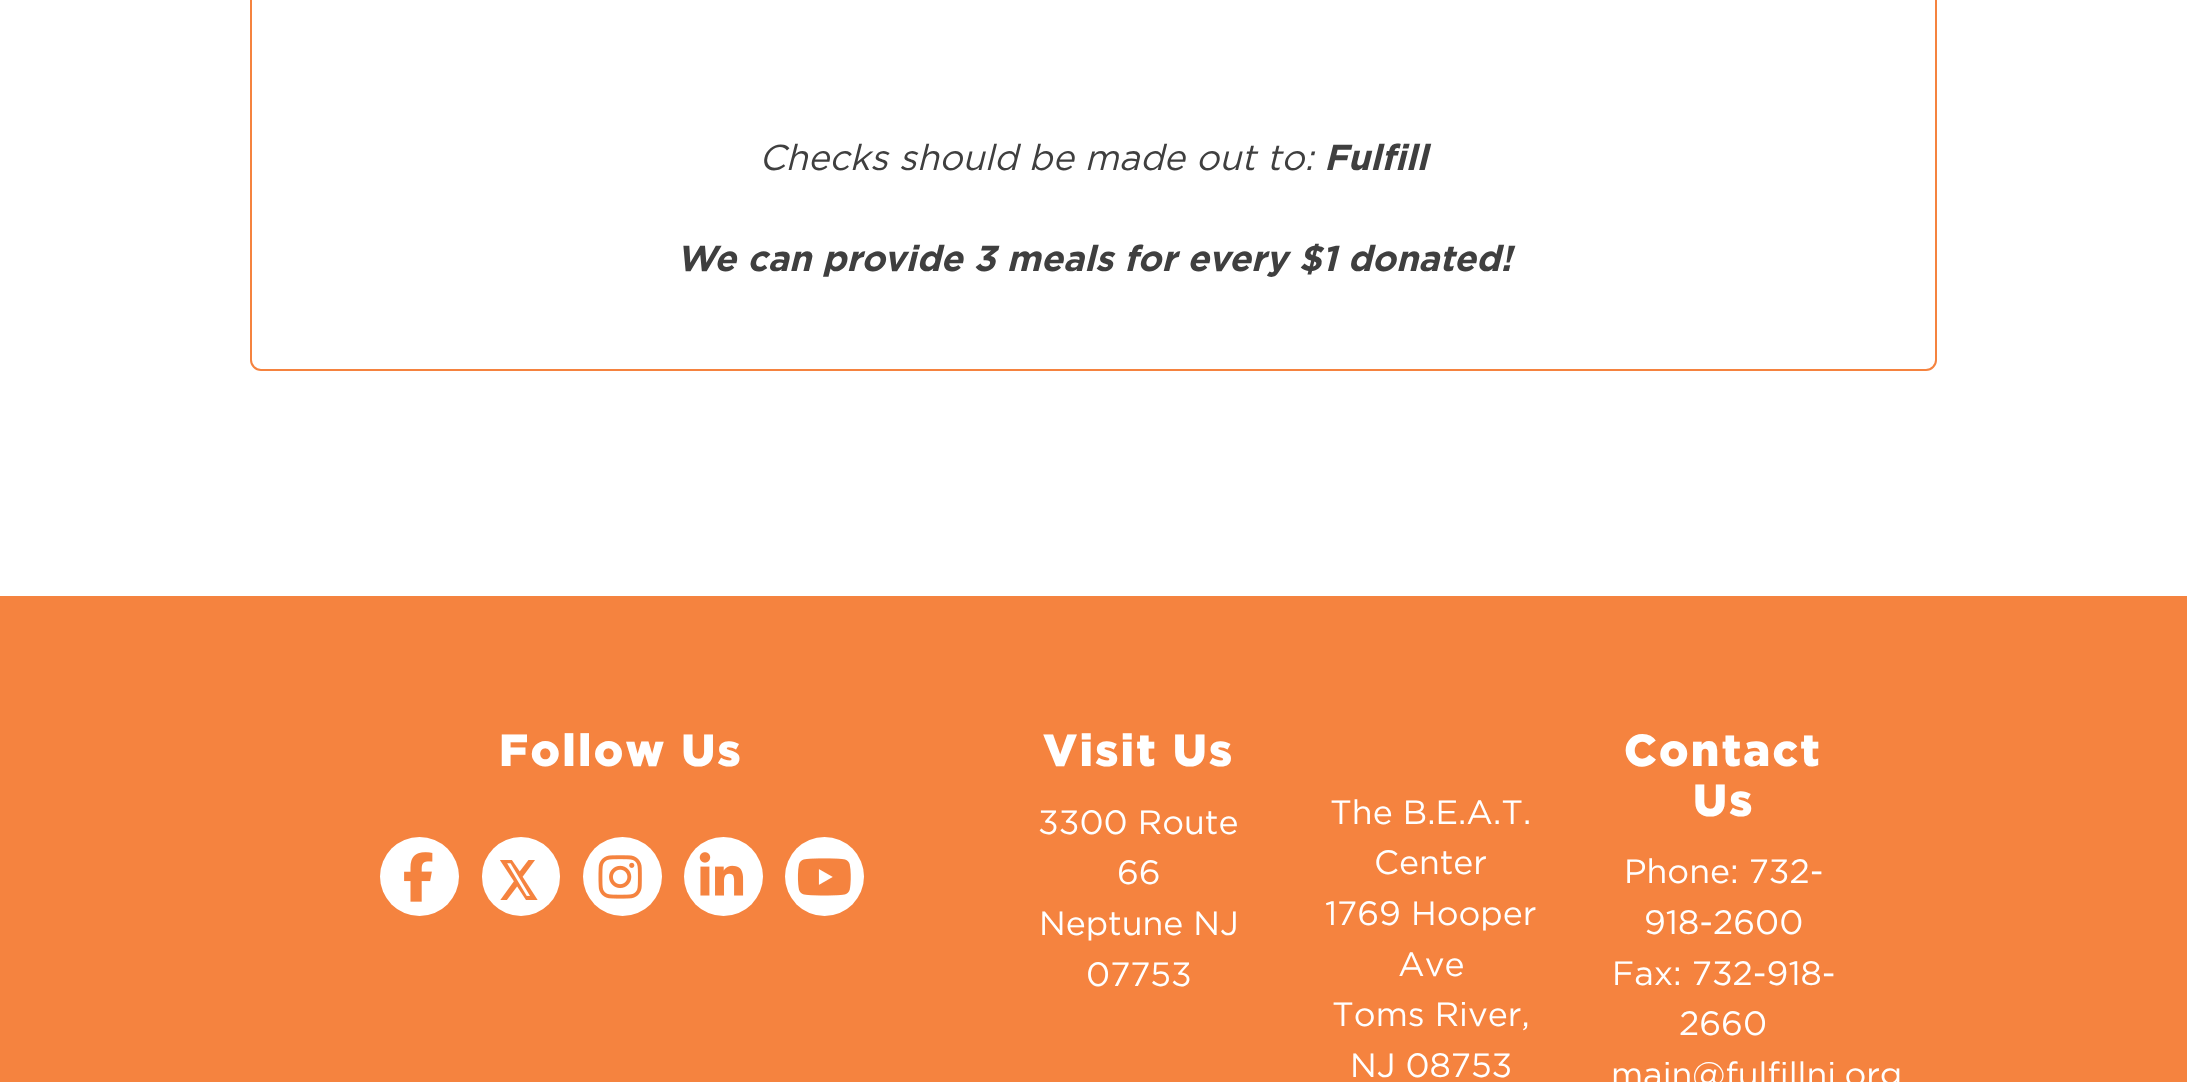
(async () => {
const canvas = document.querySelector("canvas")
canvas.width = 2187
canvas.height = 1082
const c = canvas.getContext("2d")
c.miterLimit = 4
c.fontKerning = "normal"
function T(s,x,y){c.fillText(s,x,y)}
function R(x,y,w,h){c.fillRect(x,y,w,h)}
function Q(x,y,w,h,r){c.beginPath();c.roundRect(x,y,w,h,r);c.fill()}
async function I(src,x,y,w,h){const img=new Image();img.src=src;await img.decode();c.drawImage(img,x,y,w,h)}
c.fillStyle="#fff"
R(0,0,2187,1082)
c.beginPath()
c.roundRect(251,-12,1685,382,10)
c.strokeStyle="#f5833f"
c.lineWidth=2
c.stroke()
c.font="italic 36px Gotham"
c.fillStyle="#3f3f3f"
T("Checks should be made out to:",759,170)
c.font="italic bold 36px Gotham"
T("Fulfill",1324,170)
T("We can provide 3 meals for every $1 donated!",676,271)
c.fillStyle="#f5833f"
R(0,596,2187,486)
c.letterSpacing="2.25px"
c.font="900 45px Gotham"
c.fillStyle="#fff"
T("Follow Us",499,766)
c.beginPath()
c.arc(419.5,876.5,39.5,0,7)
c.fill()
await I("1.png",404,852,29,50)
Q(482,837,78,79,39)
await I("2.png",500,860,38,40)
c.beginPath()
c.arc(622.5,876.5,39.5,0,7)
c.fill()
await I("3.png",598,855,44,44)
c.beginPath()
c.arc(723.5,876.5,39.5,0,7)
c.fill()
await I("4.png",699,852,45,44)
c.beginPath()
c.arc(824.5,876.5,39.5,0,7)
c.fill()
await I("5.png",797,858,54,38)
T("Visit Us",1043,766)
c.letterSpacing="0px"
c.font="33.75px Gotham"
T("3300 Route",1038,834)
T("66",1117,884)
T("Neptune NJ",1039,935)
T("07753",1086,986)
T("The B.E.A.T.",1330,824)
T("Center",1374,874)
T("1769 Hooper",1325,925)
T("Ave",1398,976)
T("Toms River,",1332,1026)
T("NJ 08753",1350,1077)
c.letterSpacing="2.25px"
c.font="900 45px Gotham"
T("Contact",1624,766)
T("Us",1693,816)
c.letterSpacing="0px"
c.font="33.75px Gotham"
T("Phone: 732-",1624,883)
T("918-2600",1644,934)
T("Fax: 732-918-",1612,985)
T("2660",1679,1035)
T("main@fulfillnj.org",1611,1086)
})()
